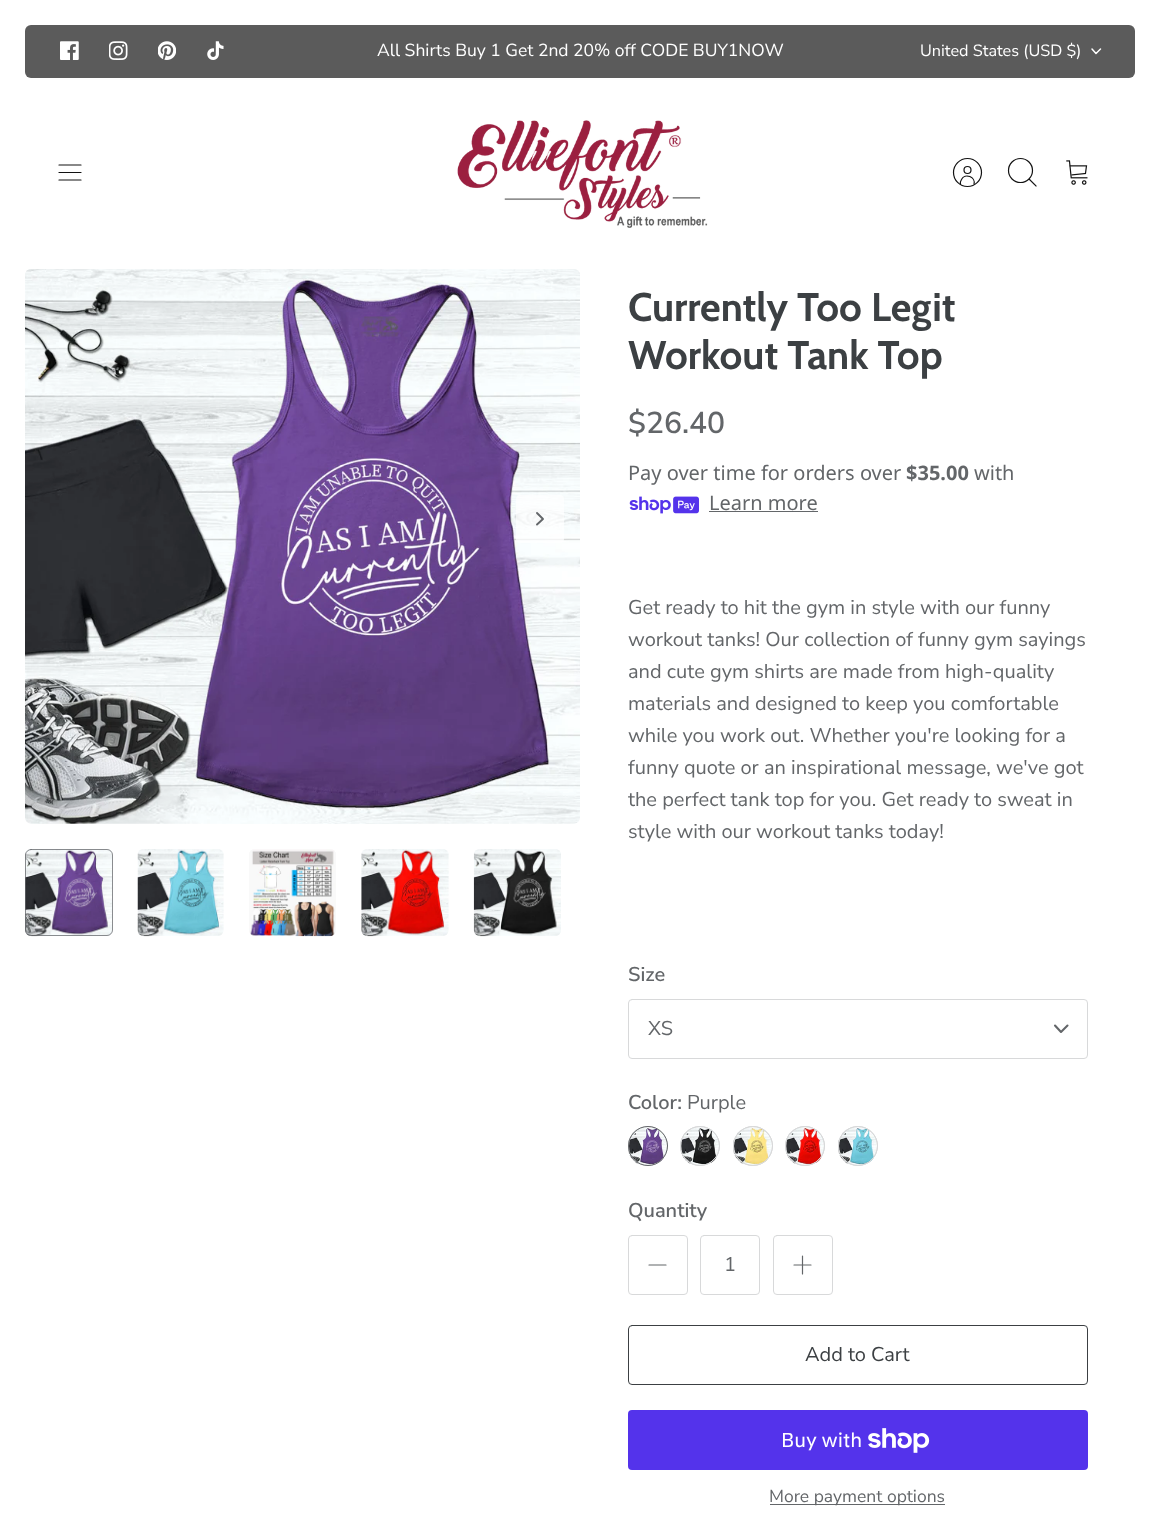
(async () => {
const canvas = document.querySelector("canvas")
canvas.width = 1159
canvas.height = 1514
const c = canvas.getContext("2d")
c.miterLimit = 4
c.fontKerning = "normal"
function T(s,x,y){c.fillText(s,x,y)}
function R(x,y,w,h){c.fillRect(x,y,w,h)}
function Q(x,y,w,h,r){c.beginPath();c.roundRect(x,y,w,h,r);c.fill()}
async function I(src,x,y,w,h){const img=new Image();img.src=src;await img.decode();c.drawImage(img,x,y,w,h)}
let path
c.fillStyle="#fff"
R(0,0,1159,1514)
c.fillStyle="#5b5b5b"
Q(25,25,1110,53,6)
await I("1.png",60,41,19,19)
await I("2.png",109,41,19,19)
await I("3.png",158,41,18,19)
await I("4.png",207,41,17,19)
c.font="17.5px Nunito Sans"
c.fillStyle="#fff"
T("All Shirts Buy 1 Get 2nd 20% off CODE BUY1NOW",377,56)
c.font="16.25px Nunito Sans"
T("United States (USD $)",920,56)
path = new Path2D("M1092 49l4 4.5l4.5-4.5")
c.strokeStyle="#fff"
c.lineWidth=1.5
c.lineCap="round"
c.lineJoin="round"
c.stroke(path)
path = new Path2D("M59 172.5h22m-22-7.5h22m-22 15h22")
c.strokeStyle="#121212"
c.lineWidth=1.2
c.stroke(path)
await I("5.png",457,120,251,108)
path = new Path2D("M974 184.5c2-7.5-9-12-12.5-5c-1 1.5-1.5 3.5-1 5")
c.lineCap="butt"
c.lineJoin="miter"
c.stroke(path)
c.beginPath()
c.arc(967.5,170,3.5,0,7)
c.stroke()
c.beginPath()
c.arc(967.5,172.5,14,0,7)
c.stroke()
c.beginPath()
c.arc(1020.5,170.5,12,0,7)
c.stroke()
path = new Path2D("M1029.5 179.5l6.5 6.5")
c.lineCap="square"
c.stroke(path)
await I("6.png",1066,160,22,25)
await I("7.png",25,269,555,555)
c.fillStyle="#ffffffb3"
Q(516,495,48,48,4)
path = new Path2D("M537 524.5l6-5.5l-6-6")
c.strokeStyle="#636669"
c.lineWidth=1.9
c.lineCap="round"
c.lineJoin="round"
c.stroke(path)
await I("8.png",25,849,88,88)
c.beginPath()
c.roundRect(25.5,849.5,87,86,5.5)
c.strokeStyle="#636669bf"
c.lineWidth=1
c.lineJoin="miter"
c.stroke()
await I("9.png",137,849,87,88)
await I("10.png",249,849,87,88)
await I("11.png",361,849,88,88)
await I("12.png",473,849,88,88)
c.font="bold 40px Cabin"
c.fillStyle="#3c4043"
T("Currently Too Legit",628,321)
T("Workout Tank Top",628,369)
c.font="600 30px Nunito Sans"
c.fillStyle="#636669"
T("$26.40",628,433)
c.font="20px Noto Sans"
T("Pay over time for orders over",628,480)
c.font="bold 20px Noto Sans"
T("$35.00",906,480)
c.font="20px Noto Sans"
T("with",974,480)
await I("13.png",629,496,70,18)
T("Learn more",709,510)
R(709,511,109,1)
c.font="20px Nunito Sans"
T("Get ready to hit the gym in style with our funny",628,614)
T("workout tanks! Our collection of funny gym sayings",628,646)
T("and cute gym shirts are made from high-quality",628,678)
T("materials and designed to keep you comfortable",628,710)
T("while you work out. Whether you're looking for a",628,742)
T("funny quote or an inspirational message, we've got",628,774)
T("the perfect tank top for you. Get ready to sweat in",628,806)
T("style with our workout tanks today!",628,838)
c.font="600 20px Nunito Sans"
T("Size",628,981)
c.beginPath()
c.roundRect(628.5,999.5,459,59,3.5)
c.strokeStyle="#d8d9da"
c.stroke()
c.font="20px Nunito Sans"
T("XS",648,1035)
path = new Path2D("M1055 1025.5l6 6.5l6.5-6.5")
c.strokeStyle="#636669"
c.lineWidth=2.1
c.lineJoin="round"
c.stroke(path)
c.font="600 20px Nunito Sans"
T("Color:",628,1109)
c.font="20px Nunito Sans"
T("Purple",687,1109)
await I("14.png",628,1127,39,38)
c.beginPath()
c.arc(648,1146,19.5,0,7)
c.strokeStyle="#d8d9da"
c.lineWidth=1
c.stroke()
c.beginPath()
c.arc(648,1146,19.5,0,7)
c.strokeStyle="#636669"
c.stroke()
await I("15.png",681,1127,38,38)
c.beginPath()
c.arc(700,1146,19.5,0,7)
c.strokeStyle="#d8d9da"
c.stroke()
c.beginPath()
c.arc(700,1146,19.5,0,7)
c.stroke()
await I("16.png",733,1127,39,38)
c.beginPath()
c.arc(753,1146,19.5,0,7)
c.stroke()
c.beginPath()
c.arc(753,1146,19.5,0,7)
c.stroke()
await I("17.png",786,1127,38,38)
c.beginPath()
c.arc(805,1146,19.5,0,7)
c.stroke()
c.beginPath()
c.arc(805,1146,19.5,0,7)
c.stroke()
await I("18.png",838,1127,39,38)
c.beginPath()
c.arc(858,1146,19.5,0,7)
c.stroke()
c.beginPath()
c.arc(858,1146,19.5,0,7)
c.stroke()
c.font="600 20px Nunito Sans"
T("Quantity",628,1217)
c.beginPath()
c.roundRect(628.5,1235.5,59,59,3.5)
c.lineJoin="miter"
c.stroke()
path = new Path2D("M649 1265h17")
c.strokeStyle="#636669"
c.lineWidth=1.2
c.lineJoin="round"
c.stroke(path)
c.beginPath()
c.roundRect(700.5,1235.5,59,59,3.5)
c.strokeStyle="#d8d9da"
c.lineWidth=1
c.lineJoin="miter"
c.stroke()
c.font="20px Nunito Sans"
T("1",724,1271)
c.beginPath()
c.roundRect(773.5,1235.5,59,59,3.5)
c.stroke()
path = new Path2D("M802.5 1256v18m-8.5-9h17")
c.strokeStyle="#636669"
c.lineWidth=1.2
c.lineJoin="round"
c.stroke(path)
c.beginPath()
c.roundRect(628.5,1325.5,459,59,3.5)
c.strokeStyle="#3c4043"
c.lineWidth=1
c.lineJoin="miter"
c.stroke()
c.fillStyle="#3c4043"
T("Add to Cart",805,1361)
c.fillStyle="#5433eb"
Q(628,1410,460,60,4)
c.font="20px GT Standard"
c.fillStyle="#fff"
T("Buy with",781,1447)
await I("19.png",868,1428,62,25)
c.fillStyle="#636669"
R(770,1504,175,1)
c.font="17.5px Nunito Sans"
T("More payment options",769,1502)
})()
